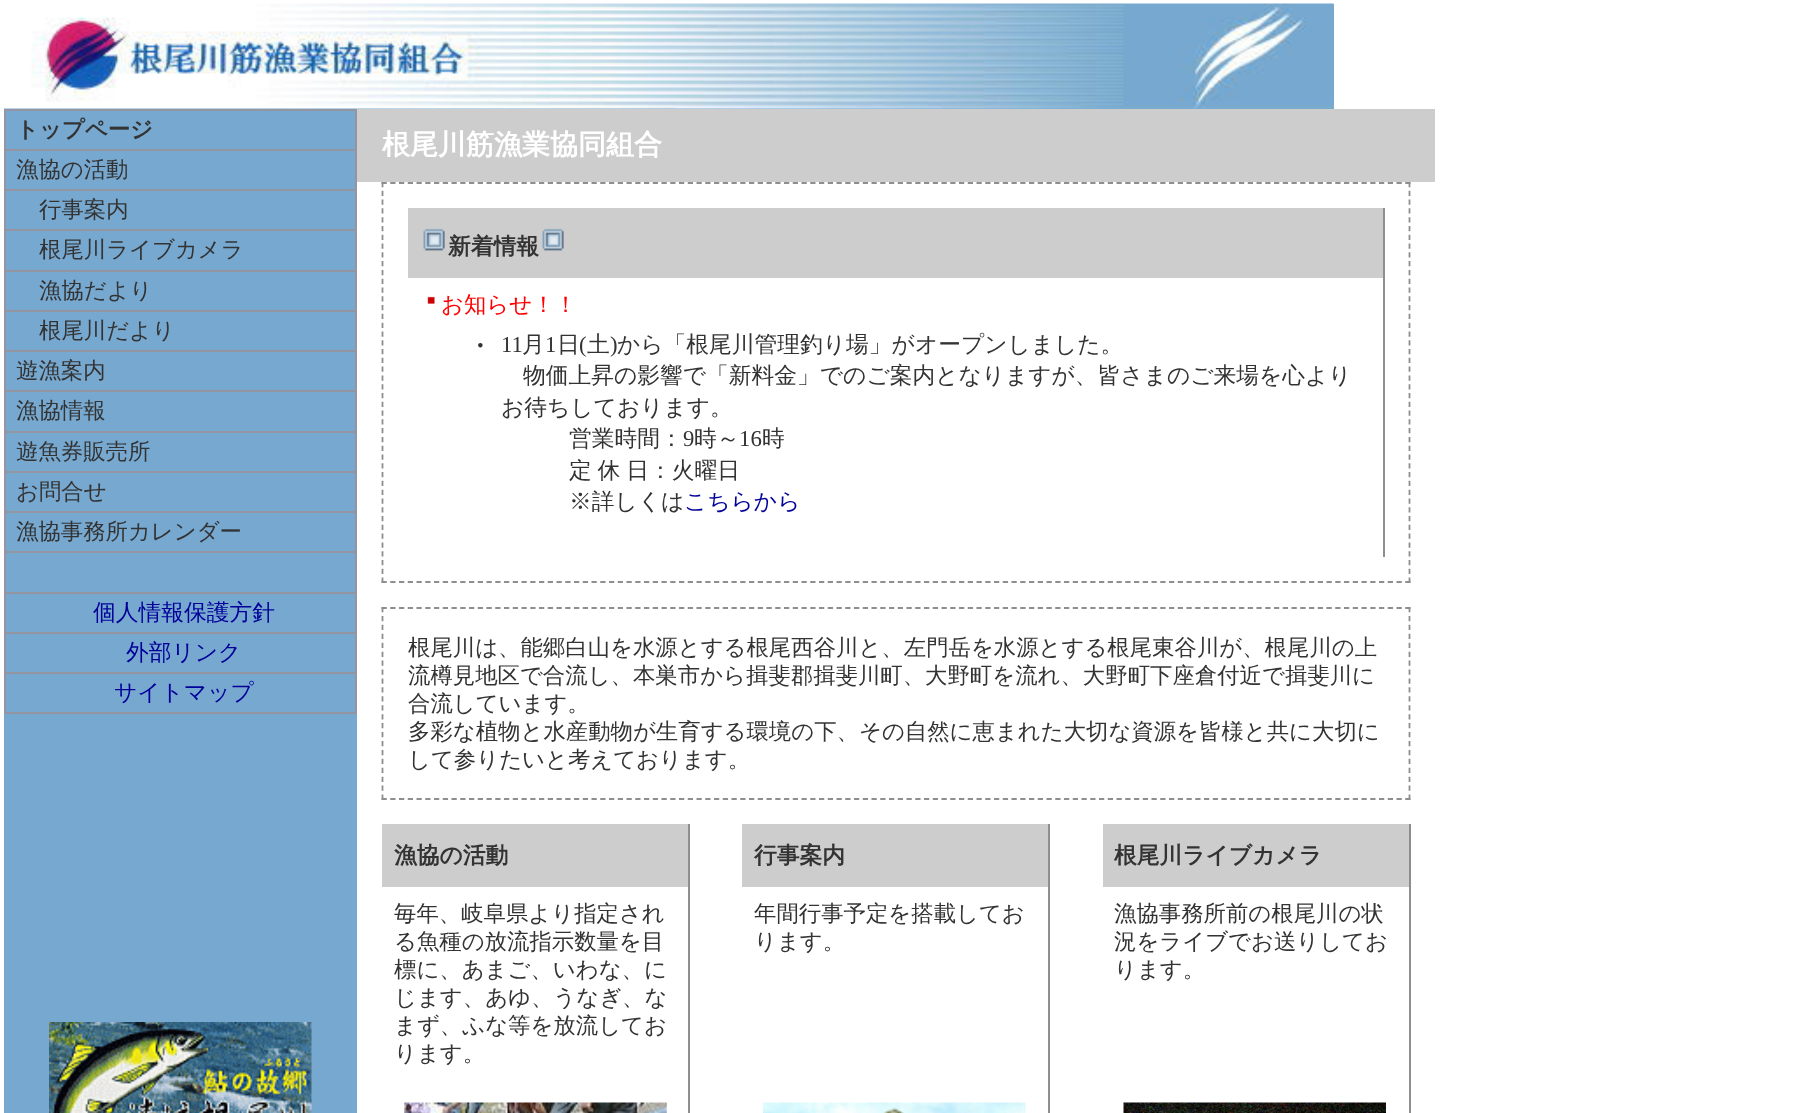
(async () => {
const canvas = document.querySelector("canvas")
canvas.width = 1804
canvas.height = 1113
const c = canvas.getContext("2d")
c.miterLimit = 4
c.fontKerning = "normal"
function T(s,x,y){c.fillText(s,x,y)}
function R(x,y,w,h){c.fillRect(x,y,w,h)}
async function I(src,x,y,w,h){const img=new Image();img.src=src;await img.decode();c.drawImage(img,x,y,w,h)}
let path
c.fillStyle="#fff"
R(0,0,1804,1113)
c.fillStyle="#77a8d0"
R(4,4,1330,105)
await I("1.png",4,3,1330,106)
R(4,111,353,1002)
c.fillStyle="#9395a2"
R(4,109,353,2)
R(355,110,2,161)
R(4,149,353,2)
R(4,110,2,41)
c.font="bold 22.4px WenQuanYi Zen Hei"
c.fillStyle="#333"
T("トップページ",16,137)
c.fillStyle="#9395a2"
R(4,189,353,2)
R(4,151,2,40)
c.font="500 22.4px WenQuanYi Zen Hei"
c.fillStyle="#333"
T("漁協の活動",16,177)
c.fillStyle="#9395a2"
R(4,229,353,2)
R(4,191,2,40)
c.fillStyle="#333"
T("行事案内",39,217)
c.fillStyle="#9395a2"
R(4,270,353,2)
R(4,231,2,40)
c.fillStyle="#333"
T("根尾川ライブカメラ",39,257)
c.fillStyle="#9395a2"
R(355,271,2,161)
R(4,310,353,2)
R(4,271,2,41)
c.fillStyle="#333"
T("漁協だより",39,298)
c.fillStyle="#9395a2"
R(4,350,353,2)
R(4,312,2,40)
c.fillStyle="#333"
T("根尾川だより",39,338)
c.fillStyle="#9395a2"
R(4,390,353,2)
R(4,352,2,40)
c.fillStyle="#333"
T("遊漁案内",16,378)
c.fillStyle="#9395a2"
R(4,431,353,2)
R(4,392,2,40)
c.fillStyle="#333"
T("漁協情報",16,418)
c.fillStyle="#9395a2"
R(355,432,2,161)
R(4,471,353,2)
R(4,432,2,41)
c.fillStyle="#333"
T("遊魚券販売所",16,459)
c.fillStyle="#9395a2"
R(4,511,353,2)
R(4,473,2,40)
c.fillStyle="#333"
T("お問合せ",16,499)
c.fillStyle="#9395a2"
R(4,551,353,2)
R(4,513,2,40)
c.fillStyle="#333"
T("漁協事務所カレンダー",16,539)
c.fillStyle="#9395a2"
R(4,592,353,2)
R(4,553,2,40)
R(355,593,2,121)
R(4,632,353,2)
R(4,593,2,41)
c.font="500 22.75px WenQuanYi Zen Hei"
c.fillStyle="#009"
T("個人情報保護方針",93,620)
c.fillStyle="#9395a2"
R(4,672,353,2)
R(4,634,2,40)
c.fillStyle="#009"
T("外部リンク",126,660)
c.fillStyle="#9395a2"
R(4,712,353,2)
R(4,674,2,40)
c.fillStyle="#009"
T("サイトマップ",114,700)
await I("2.png",49,1022,263,91)
c.fillStyle="#cdcdcd"
R(357,109,1078,73)
c.font="bold 28px WenQuanYi Zen Hei"
c.fillStyle="#fff"
T("根尾川筋漁業協同組合",382,154)
path = new Path2D("M381.5 183h1029")
c.strokeStyle="#8e8e8e"
c.lineWidth=1.8
c.setLineDash([5.25,3.5])
c.stroke(path)
path = new Path2D("M1409.5 182v401")
c.setLineDash([5.25,3.54])
c.stroke(path)
path = new Path2D("M381.5 582h1029")
c.setLineDash([5.25,3.5])
c.stroke(path)
path = new Path2D("M382.5 182v401")
c.setLineDash([5.25,3.54])
c.stroke(path)
c.fillStyle="#cdcdcd"
R(408,208,975,70)
c.fillStyle="#8e8e8e"
R(1383,208,2,349)
await I("3.png",423,228,22,23)
c.font="bold 22.75px WenQuanYi Zen Hei"
c.fillStyle="#333"
T("新着情報",448,254)
await I("3.png",542,228,22,23)
await I("4.png",427,296,8,8)
c.font="500 22.4px WenQuanYi Zen Hei"
c.fillStyle="#f00"
T("お知らせ！！",441,312)
c.font="500 28px WenQuanYi Zen Hei"
c.fillStyle="#333"
T("・",466,355)
c.font="22.75px Liberation Serif"
T("11",501,352)
c.font="500 22.75px WenQuanYi Zen Hei"
T("月",522,352)
c.font="22.75px Liberation Serif"
T("1",545,352)
c.font="500 22.75px WenQuanYi Zen Hei"
T("日",557,352)
c.font="22.75px Liberation Serif"
T("(",579,352)
c.font="500 22.75px WenQuanYi Zen Hei"
T("土",587,352)
c.font="22.75px Liberation Serif"
T(")",610,352)
c.font="500 22.75px WenQuanYi Zen Hei"
T("から「根尾川管理釣り場」がオープンしました。",617,352)
T("物価上昇の影響で「新料金」でのご案内となりますが、皆さまのご来場を心より",523,383)
T("お待ちしております。",501,415)
T("営業時間：",569,446)
c.font="22.75px Liberation Serif"
T("9",683,446)
c.font="500 22.75px WenQuanYi Zen Hei"
T("時～",694,446)
c.font="22.75px Liberation Serif"
T("16",739,446)
c.font="500 22.75px WenQuanYi Zen Hei"
T("時",762,446)
c.wordSpacing="-1px"
T("定 休 日：火曜日",569,478)
c.wordSpacing="0px"
T("※詳しくは",569,509)
c.fillStyle="#009"
T("こちらから",684,509)
path = new Path2D("M381.5 608h1029")
c.setLineDash([5.25,3.5])
c.stroke(path)
path = new Path2D("M1409.5 607v193")
c.setLineDash([5.25,3.68])
c.stroke(path)
path = new Path2D("M381.5 799h1029")
c.setLineDash([5.25,3.5])
c.stroke(path)
path = new Path2D("M382.5 607v193")
c.setLineDash([5.25,3.68])
c.stroke(path)
c.font="500 22.4px WenQuanYi Zen Hei"
c.fillStyle="#333"
T("根尾川は、能郷白山を水源とする根尾西谷川と、左門岳を水源とする根尾東谷川が、根尾川の上",408,655)
T("流樽見地区で合流し、本巣市から揖斐郡揖斐川町、大野町を流れ、大野町下座倉付近で揖斐川に",408,683)
T("合流しています。",408,711)
T("多彩な植物と水産動物が生育する環境の下、その自然に恵まれた大切な資源を皆様と共に大切に",408,739)
T("して参りたいと考えております。",408,767)
c.fillStyle="#cdcdcd"
R(382,824,306,63)
c.fillStyle="#8e8e8e"
R(688,824,2,289)
c.font="bold 22.75px WenQuanYi Zen Hei"
c.fillStyle="#333"
T("漁協の活動",394,863)
c.fillStyle="#cdcdcd"
R(742,824,306,63)
c.fillStyle="#8e8e8e"
R(1048,824,2,289)
c.fillStyle="#333"
T("行事案内",754,863)
c.fillStyle="#cdcdcd"
R(1103,824,306,63)
c.fillStyle="#8e8e8e"
R(1409,824,2,289)
c.fillStyle="#333"
T("根尾川ライブカメラ",1114,863)
c.font="500 22.4px WenQuanYi Zen Hei"
T("毎年、岐阜県より指定され",394,921)
T("る魚種の放流指示数量を目",394,949)
T("標に、あまご、いわな、に",394,977)
T("じます、あゆ、うなぎ、な",394,1005)
T("まず、ふな等を放流してお",394,1033)
T("ります。",394,1061)
T("年間行事予定を搭載してお",754,921)
T("ります。",754,949)
T("漁協事務所前の根尾川の状",1114,921)
T("況をライブでお送りしてお",1114,949)
T("ります。",1114,977)
await I("5.png",404,1102,263,11)
await I("6.png",763,1102,263,11)
await I("7.png",1123,1102,263,11)
})()
